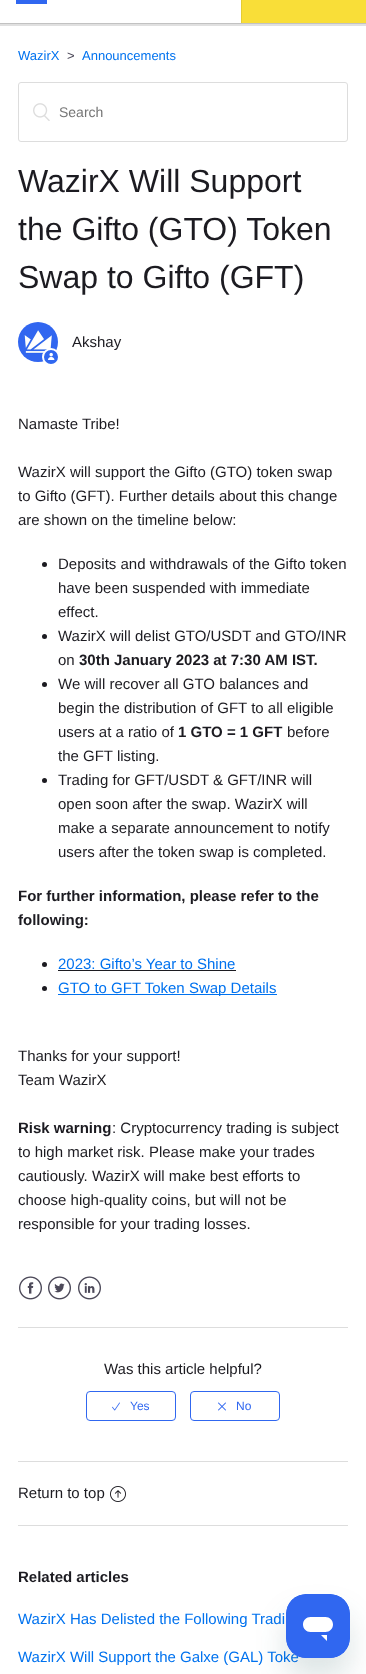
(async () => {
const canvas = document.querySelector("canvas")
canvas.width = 366
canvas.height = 1674
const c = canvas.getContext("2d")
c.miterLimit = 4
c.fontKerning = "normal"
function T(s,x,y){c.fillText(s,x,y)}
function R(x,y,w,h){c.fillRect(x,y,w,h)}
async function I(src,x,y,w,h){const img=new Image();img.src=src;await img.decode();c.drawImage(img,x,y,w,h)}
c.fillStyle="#fff"
R(0,0,366,1674)
c.fillStyle="#ddd"
R(0,23,366,1)
c.save()
c.beginPath()
c.rect(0,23,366,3)
c.clip()
c.fillStyle="#0000001f"
c.filter="blur(0.5px)"
c.beginPath()
c.rect(-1,-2,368,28)
c.fill()
c.filter="none"
c.restore()
c.fillStyle="#3067f0"
R(16,0,31,4)
c.fillStyle="#f9de38"
R(242,0,124,23)
c.fillStyle="#e5cc34"
R(241,0,1,23)
c.font="13px Liberation Sans"
c.fillStyle="#0072ef"
T("WazirX",18,60)
c.fillStyle="#4c4959"
T(">",67,60)
c.fillStyle="#0072ef"
T("Announcements",82,60)
c.beginPath()
c.roundRect(18.5,82.5,329,59,2.5)
c.strokeStyle="#ddd"
c.stroke()
await I("1.png",33,103,17,18)
c.font="14px Liberation Sans"
c.fillStyle="#757575"
T("Search",59,117)
c.font="32px Liberation Sans"
c.fillStyle="#1c1b21"
T("WazirX Will Support",18,192)
T("the Gifto (GTO) Token",18,240)
T("Swap to Gifto (GFT)",18,288)
await I("2.png",18,322,40,40)
c.fillStyle="#3067f0"
c.beginPath()
c.arc(51,357,8,0,7)
c.fill()
c.strokeStyle="#fff"
c.lineWidth=2
c.stroke()
await I("3.png",48,352,7,8)
c.font="15px Liberation Sans"
c.fillStyle="#1c1b21"
T("Akshay",72,347)
T("Namaste Tribe!",18,429)
T("WazirX will support the Gifto (GTO) token swap",18,477)
T("to Gifto (GFT). Further details about this change",18,501)
T("are shown on the timeline below:",18,525)
c.beginPath()
c.arc(44.5,564.5,2.5,0,7)
c.fill()
T("Deposits and withdrawals of the Gifto token",58,569)
T("have been suspended with immediate",58,593)
T("effect.",58,617)
c.beginPath()
c.arc(44.5,636.5,2.5,0,7)
c.fill()
T("WazirX will delist GTO/USDT and GTO/INR",58,641)
T("on",58,665)
c.font="bold 15px Liberation Sans"
T("30th January 2023 at 7:30 AM IST.",79,665)
c.beginPath()
c.arc(44.5,684.5,2.5,0,7)
c.fill()
c.font="15px Liberation Sans"
T("We will recover all GTO balances and",58,689)
T("begin the distribution of GFT to all eligible",58,713)
T("users at a ratio of",58,737)
c.font="bold 15px Liberation Sans"
T("1 GTO = 1 GFT",178,737)
c.font="15px Liberation Sans"
T("before",287,737)
T("the GFT listing.",58,761)
c.beginPath()
c.arc(44.5,780.5,2.5,0,7)
c.fill()
T("Trading for GFT/USDT & GFT/INR will",58,785)
T("open soon after the swap. WazirX will",58,809)
T("make a separate announcement to notify",58,833)
T("users after the token swap is completed.",58,857)
c.font="bold 15px Liberation Sans"
T("For further information, please refer to the",18,901)
T("following:",18,925)
c.beginPath()
c.arc(44.5,964.5,2.5,0,7)
c.fill()
c.font="15px Liberation Sans"
c.fillStyle="#0072ef"
T("2023: Gifto’s Year to Shine",58,969)
c.fillStyle="#1c1b21"
R(58,970,178,1)
c.beginPath()
c.arc(44.5,988.5,2.5,0,7)
c.fill()
c.fillStyle="#0072ef"
R(58,994,219,1)
T("GTO to GFT Token Swap Details",58,993)
c.fillStyle="#1c1b21"
T("Thanks for your support!",18,1061)
T("Team WazirX",18,1085)
c.font="bold 15px Liberation Sans"
T("Risk warning",18,1133)
c.font="15px Liberation Sans"
T(": Cryptocurrency trading is subject",112,1133)
T("to high market risk. Please make your trades",18,1157)
T("cautiously. WazirX will make best efforts to",18,1181)
T("choose high-quality coins, but will not be",18,1205)
T("responsible for your trading losses.",18,1229)
await I("4.png",19,1276,23,24)
await I("5.png",48,1276,23,24)
await I("6.png",78,1276,23,24)
c.fillStyle="#ddd"
R(18,1327,330,1)
c.fillStyle="#1c1b21"
T("Was this article helpful?",104,1374)
c.beginPath()
c.roundRect(86.5,1391.5,89,29,3.5)
c.strokeStyle="#3067f0"
c.lineWidth=1
c.stroke()
await I("7.png",112,1402,8,9)
c.font="12px Liberation Sans"
c.fillStyle="#3067f0"
T("Yes",130,1410)
c.beginPath()
c.roundRect(190.5,1391.5,89,29,3.5)
c.stroke()
await I("8.png",218,1402,8,9)
T("No",236,1410)
c.fillStyle="#ddd"
R(18,1461,330,1)
c.font="15px Liberation Sans"
c.fillStyle="#1c1b21"
T("Return to top",18,1498)
await I("9.png",110,1486,16,16)
c.fillStyle="#ddd"
R(18,1525,330,1)
c.font="bold 15px Liberation Sans"
c.fillStyle="#1c1b21"
T("Related articles",18,1582)
c.font="15px Liberation Sans"
c.fillStyle="#0072ef"
T("WazirX Has Delisted the Following Tradi",18,1624)
T("WazirX Will Support the Galxe (GAL) Toke",18,1662)
c.fillStyle="#17494d26"
c.filter="blur(15px)"
c.beginPath()
c.roundRect(286,1614,64,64,20)
c.fill()
c.filter="none"
await I("10.png",286,1594,64,64)
})()
